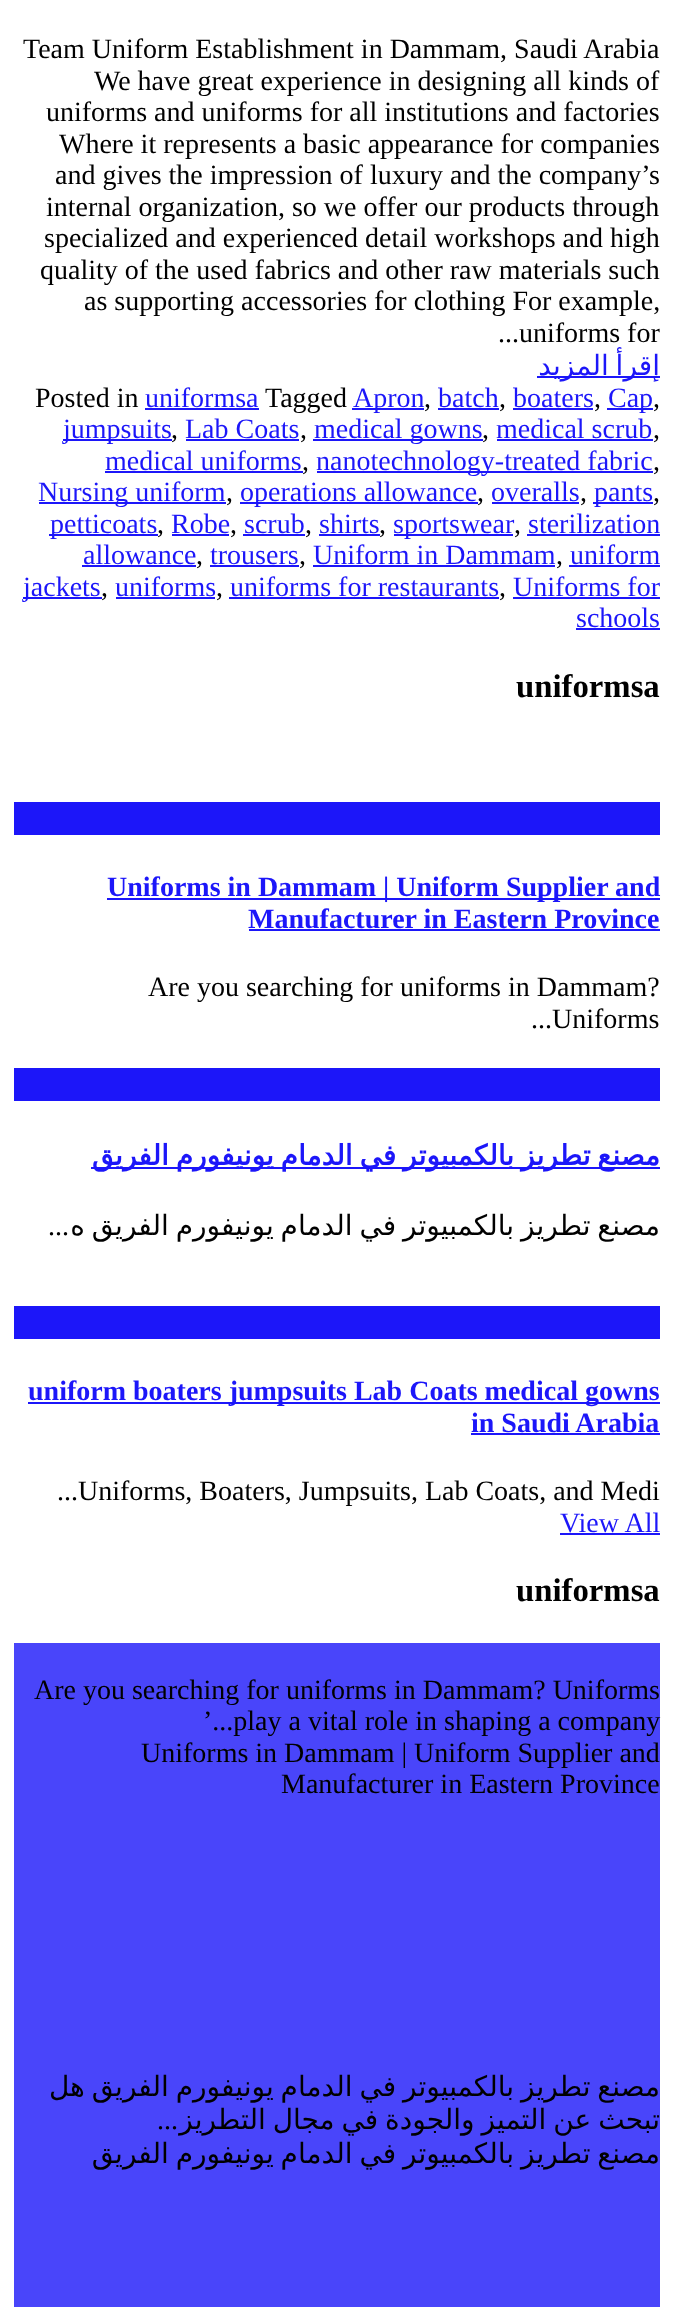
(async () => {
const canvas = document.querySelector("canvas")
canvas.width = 673
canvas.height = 2307
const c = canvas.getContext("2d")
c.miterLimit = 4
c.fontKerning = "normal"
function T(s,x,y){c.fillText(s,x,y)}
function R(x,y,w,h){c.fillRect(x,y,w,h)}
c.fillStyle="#fff"
R(0,0,673,2307)
c.font="28px Liberation Serif"
c.fillStyle="#000"
T("Team Uniform Establishment in Dammam, Saudi Arabia",23,58)
T("We have great experience in designing all kinds of",94,90)
T("uniforms and uniforms for all institutions and factories",46,121)
T("Where it represents a basic appearance for companies",59,153)
T("and gives the impression of luxury and the company’s",55,184)
T("internal organization, so we offer our products through",46,216)
T("specialized and experienced detail workshops and high",44,247)
T("quality of the used fabrics and other raw materials such",40,279)
T("as supporting accessories for clothing For example,",84,310)
T("...uniforms for",498,342)
c.fillStyle="#1c16f9"
R(537,376,123,2)
c.wordSpacing="-2px"
c.direction="rtl"
c.font="28px DejaVu Sans"
T("إقرأ المزيد",660,375)
c.wordSpacing="0px"
c.direction="ltr"
c.font="28px Liberation Serif"
c.fillStyle="#000"
T("Posted in",35,407)
c.fillStyle="#1c16f9"
T("uniformsa",145,407)
R(145,408,114,2)
c.fillStyle="#000"
T("Tagged",265,407)
c.fillStyle="#1c16f9"
R(352,408,72,2)
T("Apron",353,407)
c.fillStyle="#000"
T(",",424,407)
c.fillStyle="#1c16f9"
T("batch",438,407)
c.fillStyle="#000"
T(",",499,407)
c.fillStyle="#1c16f9"
R(438,408,61,2)
T("boaters",513,407)
c.fillStyle="#000"
T(",",594,407)
c.fillStyle="#1c16f9"
R(513,408,80,2)
R(607,408,46,2)
T("Cap",608,407)
c.fillStyle="#000"
T(",",653,407)
c.fillStyle="#1c16f9"
R(63,439,109,2)
T("jumpsuits",63,438)
c.fillStyle="#000"
T(",",171,438)
c.fillStyle="#1c16f9"
T("Lab Coats",185,438)
c.fillStyle="#000"
T(",",300,438)
c.fillStyle="#1c16f9"
R(186,439,113,2)
R(313,439,170,2)
T("medical gowns",314,438)
c.fillStyle="#000"
T(",",482,438)
c.fillStyle="#1c16f9"
T("medical scrub",496,438)
c.fillStyle="#000"
T(",",653,438)
c.fillStyle="#1c16f9"
R(497,439,156,2)
T("medical uniforms",105,470)
c.fillStyle="#000"
T(",",302,470)
c.fillStyle="#1c16f9"
R(105,471,198,2)
R(317,471,336,2)
T("nanotechnology-treated fabric",316,470)
c.fillStyle="#000"
T(",",653,470)
c.fillStyle="#1c16f9"
R(39,502,187,2)
T("Nursing uniform",38,501)
c.fillStyle="#000"
T(",",226,501)
c.fillStyle="#1c16f9"
R(240,502,238,2)
T("operations allowance",240,501)
c.fillStyle="#000"
T(",",477,501)
c.fillStyle="#1c16f9"
T("overalls",491,501)
c.fillStyle="#000"
T(",",580,501)
c.fillStyle="#1c16f9"
R(492,502,87,2)
R(593,502,60,2)
T("pants",594,501)
c.fillStyle="#000"
T(",",653,501)
c.fillStyle="#1c16f9"
R(49,534,109,2)
T("petticoats",50,533)
c.fillStyle="#000"
T(",",157,533)
c.fillStyle="#1c16f9"
T("Robe",171,533)
c.fillStyle="#000"
T(",",230,533)
c.fillStyle="#1c16f9"
R(172,534,57,2)
T("scrub",244,533)
c.fillStyle="#000"
T(",",305,533)
c.fillStyle="#1c16f9"
R(243,534,62,2)
T("shirts",319,533)
c.fillStyle="#000"
T(",",379,533)
c.fillStyle="#1c16f9"
R(319,534,61,2)
R(394,534,119,2)
T("sportswear",393,533)
c.fillStyle="#000"
T(",",514,533)
c.fillStyle="#1c16f9"
R(527,534,133,2)
T("sterilization",528,533)
T("allowance",83,564)
c.fillStyle="#000"
T(",",196,564)
c.fillStyle="#1c16f9"
R(82,565,114,2)
T("trousers",210,564)
c.fillStyle="#000"
T(",",299,564)
c.fillStyle="#1c16f9"
R(210,565,89,2)
T("Uniform in Dammam",313,564)
c.fillStyle="#000"
T(",",556,564)
c.fillStyle="#1c16f9"
R(313,565,242,2)
R(569,565,91,2)
T("uniform",570,564)
R(23,597,79,2)
T("jackets",23,596)
c.fillStyle="#000"
T(",",101,596)
c.fillStyle="#1c16f9"
T("uniforms",115,596)
c.fillStyle="#000"
T(",",216,596)
c.fillStyle="#1c16f9"
R(116,597,99,2)
T("uniforms for restaurants",230,596)
c.fillStyle="#000"
T(",",499,596)
c.fillStyle="#1c16f9"
R(229,597,270,2)
R(513,597,147,2)
T("Uniforms for",513,596)
T("schools",576,627)
R(576,628,84,2)
c.font="bold 32.75px Liberation Serif"
c.fillStyle="#000"
T("uniformsa",516,697)
c.fillStyle="#1c16f9"
R(14,802,646,33)
R(107,898,553,2)
c.font="bold 28px Liberation Serif"
T("Uniforms in Dammam | Uniform Supplier and",107,896)
T("Manufacturer in Eastern Province",248,928)
R(249,929,411,2)
c.font="28px Liberation Serif"
c.fillStyle="#000"
T("Are you searching for uniforms in Dammam?",148,996)
T("...Uniforms",531,1028)
c.fillStyle="#1c16f9"
R(14,1068,646,33)
R(91,1167,569,2)
c.wordSpacing="-2px"
c.direction="rtl"
c.font="bold 28px DejaVu Sans"
T("مصنع تطريز بالكمبيوتر في الدمام يونيفورم الفريق",660,1165)
c.wordSpacing="0px"
c.font="28px Liberation Serif"
c.fillStyle="#000"
T("...",69,1235)
c.wordSpacing="-2px"
c.font="28px DejaVu Sans"
T("مصنع تطريز بالكمبيوتر في الدمام يونيفورم الفريق ه",660,1235)
c.fillStyle="#1c16f9"
R(14,1306,646,33)
R(28,1402,632,2)
c.wordSpacing="0px"
c.direction="ltr"
c.font="bold 28px Liberation Serif"
T("uniform boaters jumpsuits Lab Coats medical gowns",28,1400)
T("in Saudi Arabia",471,1432)
R(471,1433,189,2)
c.font="28px Liberation Serif"
c.fillStyle="#000"
T("...Uniforms, Boaters, Jumpsuits, Lab Coats, and Medi",57,1500)
c.fillStyle="#1c16f9"
T("View All",560,1532)
R(560,1533,100,2)
c.font="bold 32.75px Liberation Serif"
c.fillStyle="#000"
T("uniformsa",516,1601)
c.fillStyle="#4945fa"
R(14,1643,646,664)
c.font="28px Liberation Serif"
c.fillStyle="#000"
T("Are you searching for uniforms in Dammam? Uniforms",34,1699)
T("’...play a vital role in shaping a company",203,1730)
T("Uniforms in Dammam | Uniform Supplier and",141,1762)
T("Manufacturer in Eastern Province",281,1793)
c.wordSpacing="-2px"
c.direction="rtl"
c.font="28px DejaVu Sans"
T("مصنع تطريز بالكمبيوتر في الدمام يونيفورم الفريق هل",660,2096)
c.wordSpacing="0px"
c.font="28px Liberation Serif"
T("...",178,2129)
c.wordSpacing="-2px"
c.font="28px DejaVu Sans"
T("تبحث عن التميز والجودة في مجال التطريز",660,2129)
T("مصنع تطريز بالكمبيوتر في الدمام يونيفورم الفريق",660,2163)
})()
